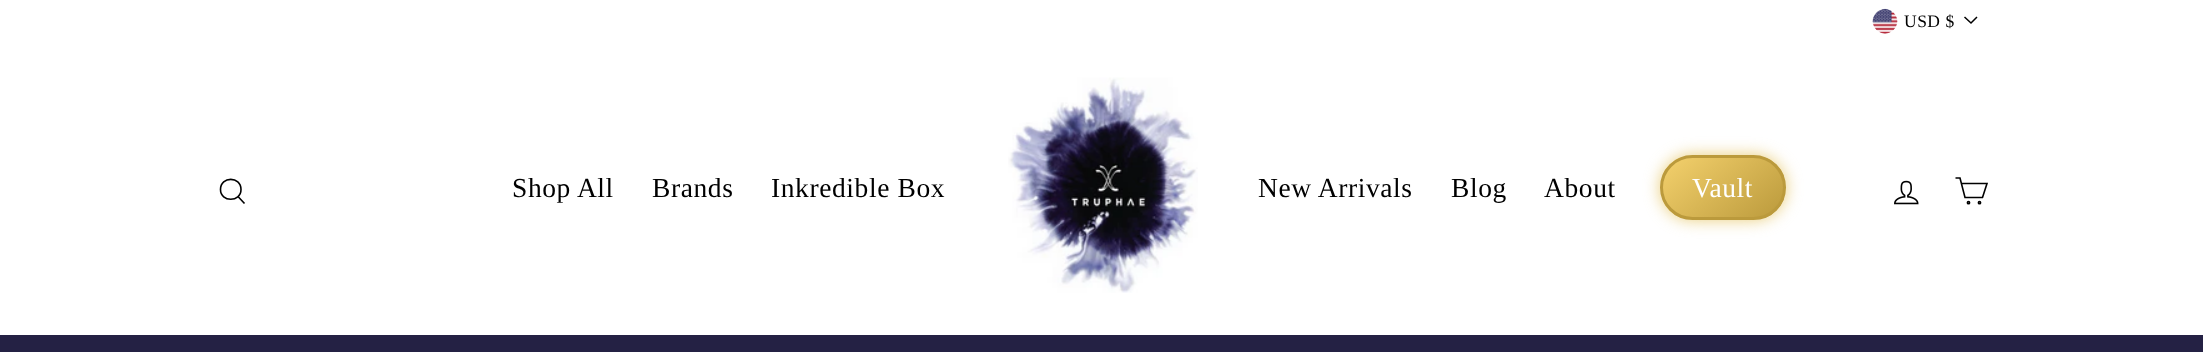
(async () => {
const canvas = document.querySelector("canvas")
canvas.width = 2203
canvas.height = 352
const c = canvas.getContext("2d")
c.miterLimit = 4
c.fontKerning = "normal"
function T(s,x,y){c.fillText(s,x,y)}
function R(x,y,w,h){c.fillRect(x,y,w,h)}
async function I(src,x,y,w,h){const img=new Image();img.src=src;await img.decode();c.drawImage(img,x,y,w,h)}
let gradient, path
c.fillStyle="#fff"
R(0,0,2203,352)
await I("1.png",1872,8,26,26)
c.letterSpacing="0.5px"
c.font="17.5px Liberation Serif"
c.fillStyle="#000"
T("USD $",1904,27)
path = new Path2D("M1964.5 17l6.5 6l6-6")
c.strokeStyle="#000"
c.lineWidth=1.5
c.stroke(path)
path = new Path2D("M241 189.5c0 13-20.5 13-20.5 0c0-13.5 20.5-13.5 20.5 0zm3.5 14l-6.5-7")
c.lineWidth=1.6
c.stroke(path)
c.letterSpacing="0.6px"
c.font="27.5px Liberation Serif"
T("Shop All",512,197)
T("Brands",652,197)
T("Inkredible Box",771,197)
await I("2.png",1008,77,190,216)
T("New Arrivals",1258,197)
T("Blog",1451,197)
T("About",1544,197)
c.fillStyle="#e2bc4ebf"
c.filter="blur(8px)"
c.beginPath()
c.roundRect(1660,155,126,65,32.5)
c.fill()
c.filter="none"
c.save()
c.beginPath()
c.roundRect(1660,155,126,65,32.5)
c.clip()
gradient = c.createLinearGradient(1763,235,1683,140)
gradient.addColorStop(0,"#bb9a3c")
gradient.addColorStop(1,"#f4d16d")
c.fillStyle = gradient
R(1663,158,121,60)
c.restore()
c.beginPath()
c.roundRect(1661.5,156.5,123,62,31)
c.strokeStyle="#bb9a3c"
c.lineWidth=3
c.stroke()
c.fillStyle="#fff"
T("Vault",1692,197)
await I("3.png",1894,180,25,25)
path = new Path2D("M1961.5 183.5h25.5l-4.5 14h-17.5l-5-19.5h-4.5")
c.strokeStyle="#000"
c.lineWidth=1.6
c.stroke(path)
c.beginPath()
c.arc(1968.5,202.7,1.1,0,7)
c.stroke()
c.beginPath()
c.arc(1979.5,202.7,1.1,0,7)
c.stroke()
c.fillStyle="#242144"
R(0,335,2203,17)
})()
